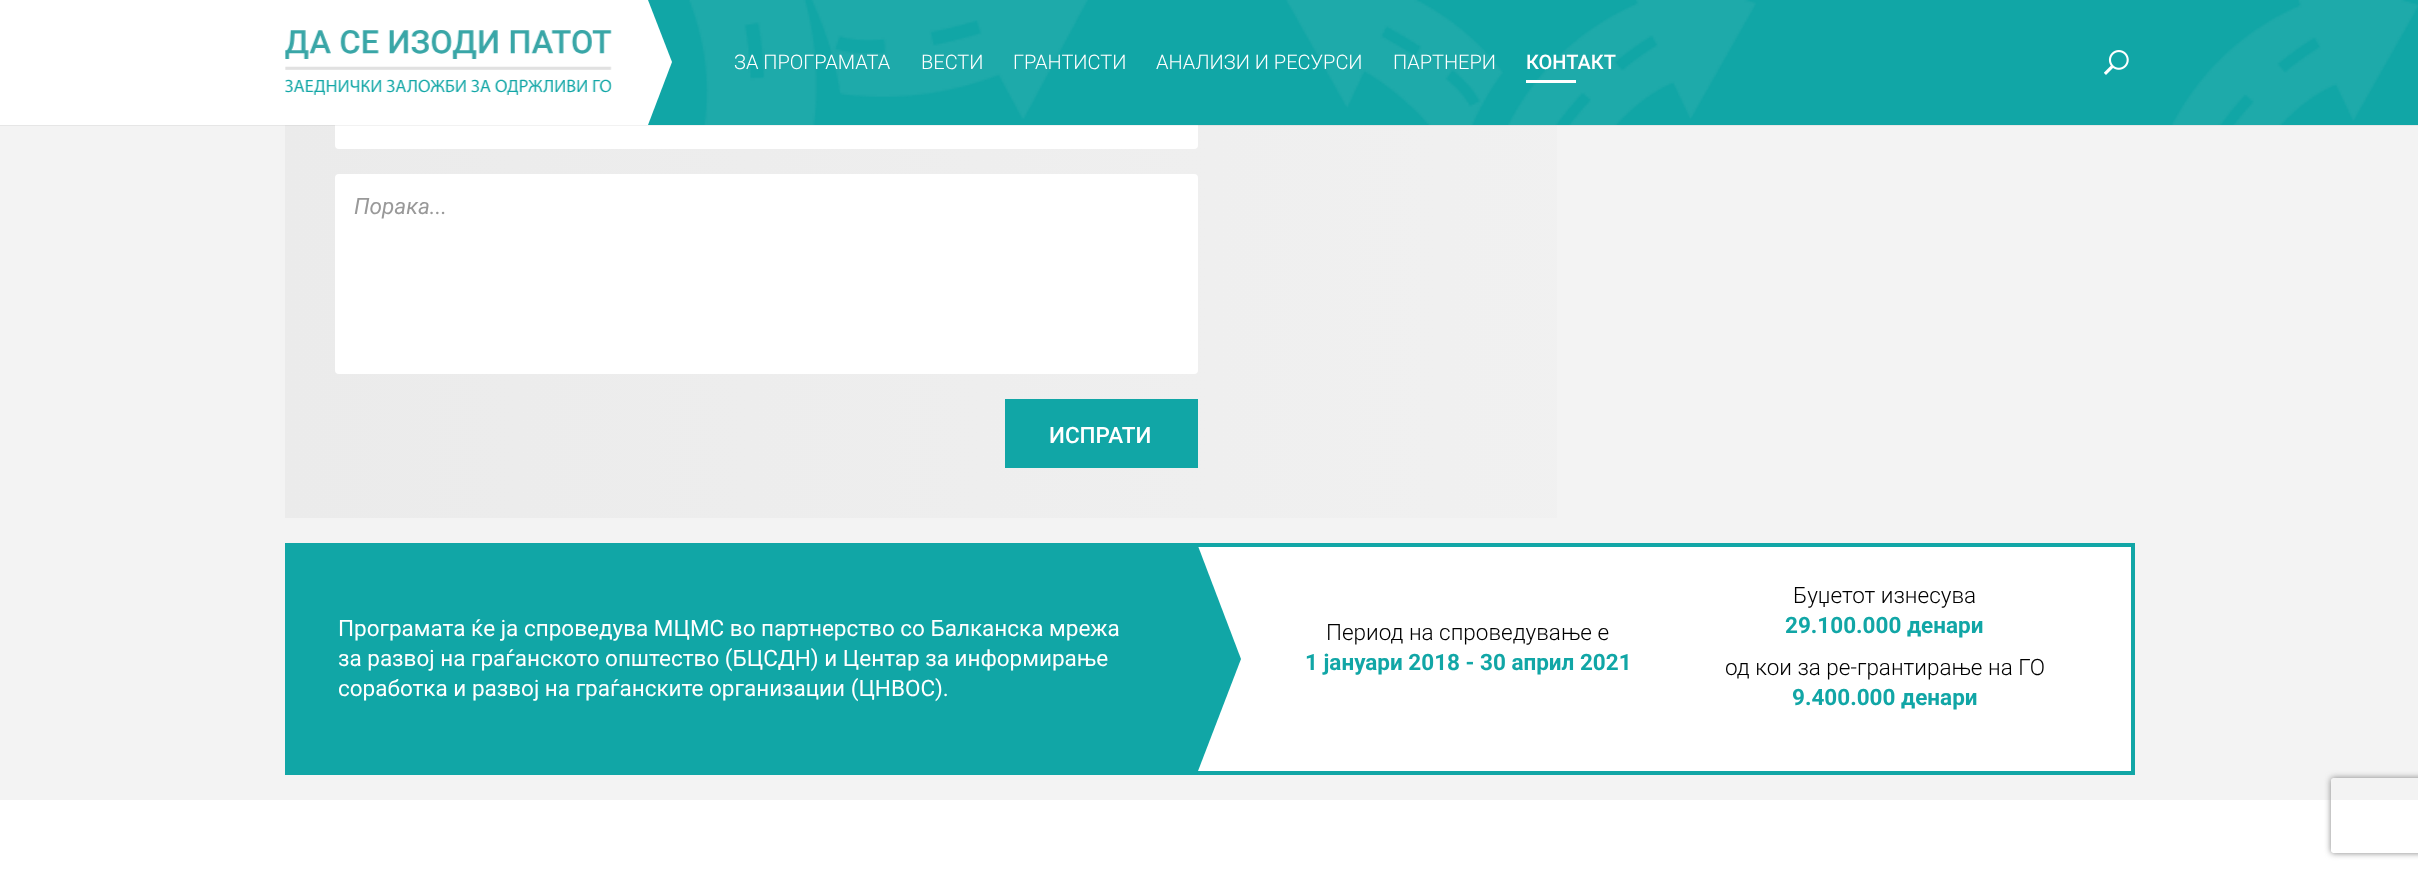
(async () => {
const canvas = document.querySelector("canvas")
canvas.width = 2418
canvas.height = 870
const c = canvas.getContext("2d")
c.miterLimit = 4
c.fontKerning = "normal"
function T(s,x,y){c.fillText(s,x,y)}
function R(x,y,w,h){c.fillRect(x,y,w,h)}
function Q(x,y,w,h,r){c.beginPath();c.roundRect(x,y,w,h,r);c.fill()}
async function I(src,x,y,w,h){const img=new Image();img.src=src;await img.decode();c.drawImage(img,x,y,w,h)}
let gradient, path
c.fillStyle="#f3f3f3"
R(0,0,2418,870)
gradient = c.createLinearGradient(285,173,2135,173)
gradient.addColorStop(0,"#ebebeb")
gradient.addColorStop(1,"#f3f3f3")
c.fillStyle = gradient
R(285,125,1272,393)
c.fillStyle="#fff"
Q(335,80,863,69,4)
c.fillStyle="#0000000d"
c.filter="blur(0.5px)"
c.beginPath()
c.rect(0,1,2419,125)
c.fill()
c.filter="none"
c.fillStyle="#11a6a6"
R(648,0,1770,125)
await I("1.png",689,0,1729,125)
c.fillStyle="#fff"
R(0,0,35,125)
R(35,0,613,125)
await I("2.png",285,30,327,65)
path = new Path2D("M648 125v-125l24 62z")
c.fill(path)
c.font="300 20px Roboto"
T("ЗА ПРОГРАМАТА",734,69)
T("ВЕСТИ",921,69)
T("ГРАНТИСТИ",1013,69)
T("АНАЛИЗИ И РЕСУРСИ",1156,69)
T("ПАРТНЕРИ",1393,69)
c.font="500 20px Roboto"
T("КОНТАКТ",1526,69)
R(1526,80,50,3)
await I("3.png",2104,50,25,25)
Q(335,174,863,200,4)
c.font="italic 22.5px Roboto"
c.fillStyle="#999"
T("Порака...",354,214)
c.fillStyle="#11a6a6"
R(1005,399,193,69)
c.font="500 22.5px Roboto"
c.fillStyle="#fff"
T("ИСПРАТИ",1049,443)
R(1198,547,933,224)
c.strokeStyle="#11a6a6"
c.lineWidth=4
c.strokeRect(287,545,1846,228)
c.fillStyle="#11a6a6"
R(289,547,909,224)
c.font="22.5px Roboto"
c.fillStyle="#fff"
T("Програмата ќе ја спроведува МЦМС во партнерство со Балканска мрежа",338,636)
T("за развој на граѓанското општество (БЦСДН) и Центар за информирање",338,666)
T("соработка и развој на граѓанските организации (ЦНВОС).",338,696)
c.fillStyle="#11a6a6"
path = new Path2D("M1198 771v-225l43 113z")
c.fill(path)
c.font="300 22.5px Roboto"
c.fillStyle="#000"
T("Период на спроведување е",1326,640)
c.font="bold 22.5px Roboto"
c.fillStyle="#11a6a6"
T("1 јануари 2018 - 30 април 2021",1305,670)
c.font="300 22.5px Roboto"
c.fillStyle="#000"
T("Буџетот изнесува",1793,603)
c.font="bold 22.5px Roboto"
c.fillStyle="#11a6a6"
T("29.100.000 денари",1785,633)
c.font="300 22.5px Roboto"
c.fillStyle="#000"
T("од кои за ре-грантирање на ГО",1725,675)
c.font="bold 22.5px Roboto"
c.fillStyle="#11a6a6"
T("9.400.000 денари",1792,705)
c.fillStyle="#fff"
R(0,800,2418,70)
c.save()
path = new Path2D("M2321 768h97v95h-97zm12.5 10h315c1.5 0 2.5 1 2.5 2.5v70c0 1.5-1 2.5-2.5 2.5h-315c-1.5 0-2.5-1-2.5-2.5v-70c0-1.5 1-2.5 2.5-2.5z")
c.clip(path,"evenodd")
c.fillStyle="#808080"
c.filter="blur(3px)"
c.beginPath()
c.roundRect(2331,778,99,75,2.5)
c.fill()
c.filter="none"
c.restore()
})()
